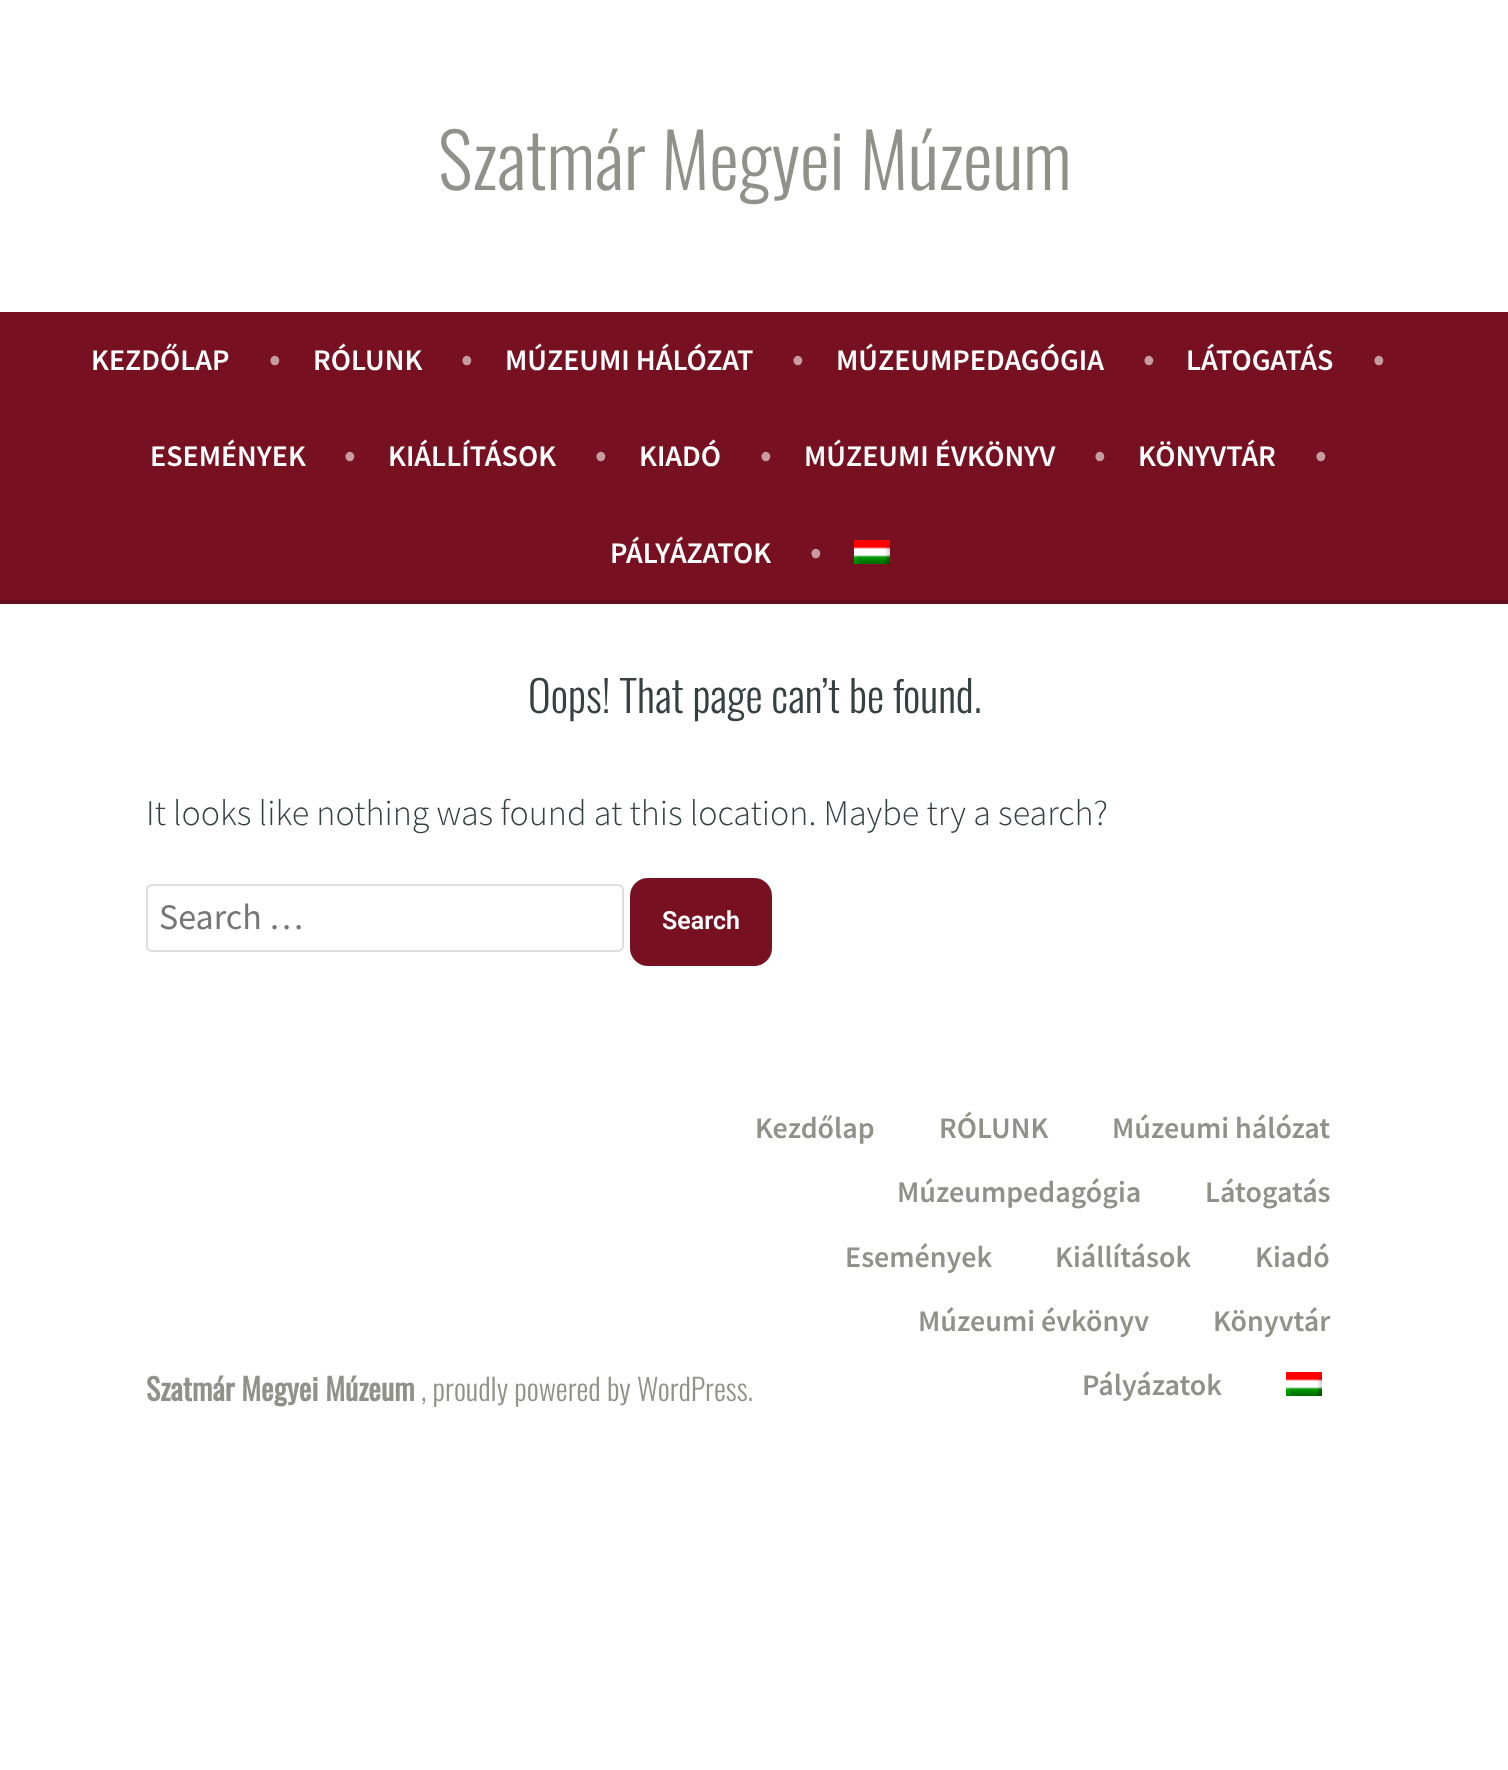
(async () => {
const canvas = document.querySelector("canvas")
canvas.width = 1508
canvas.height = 1770
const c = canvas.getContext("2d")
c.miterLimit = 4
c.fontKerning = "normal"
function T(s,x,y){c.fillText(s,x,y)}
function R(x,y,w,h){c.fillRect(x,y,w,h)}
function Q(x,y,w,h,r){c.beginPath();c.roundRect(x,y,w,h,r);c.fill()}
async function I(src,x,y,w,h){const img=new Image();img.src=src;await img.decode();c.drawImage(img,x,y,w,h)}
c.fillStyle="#fff"
R(0,0,1508,1770)
c.font="300 74.75px Oswald"
c.fillStyle="#91918c"
T("Szatmár Megyei Múzeum",438,190)
c.fillStyle="#771121"
R(0,312,1508,288)
c.fillStyle="#650e1c"
R(0,600,1508,4)
c.font="600 30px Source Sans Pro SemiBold"
c.fillStyle="#fff"
T("KEZDŐLAP",91,370)
c.font="600 36px Source Sans Pro SemiBold"
c.fillStyle="#c69ba2"
T("•",269,370)
c.font="600 30px Source Sans Pro SemiBold"
c.fillStyle="#fff"
T("RÓLUNK",313,370)
c.font="600 36px Source Sans Pro SemiBold"
c.fillStyle="#c69ba2"
T("•",461,370)
c.font="600 30px Source Sans Pro SemiBold"
c.fillStyle="#fff"
T("MÚZEUMI HÁLÓZAT",505,370)
c.font="600 36px Source Sans Pro SemiBold"
c.fillStyle="#c69ba2"
T("•",792,370)
c.font="600 30px Source Sans Pro SemiBold"
c.fillStyle="#fff"
T("MÚZEUMPEDAGÓGIA",836,370)
c.font="600 36px Source Sans Pro SemiBold"
c.fillStyle="#c69ba2"
T("•",1143,370)
c.font="600 30px Source Sans Pro SemiBold"
c.fillStyle="#fff"
T("LÁTOGATÁS",1186,370)
c.font="600 36px Source Sans Pro SemiBold"
c.fillStyle="#c69ba2"
T("•",1373,370)
c.font="600 30px Source Sans Pro SemiBold"
c.fillStyle="#fff"
T("ESEMÉNYEK",150,466)
c.font="600 36px Source Sans Pro SemiBold"
c.fillStyle="#c69ba2"
T("•",344,466)
c.font="600 30px Source Sans Pro SemiBold"
c.fillStyle="#fff"
T("KIÁLLÍTÁSOK",388,466)
c.font="600 36px Source Sans Pro SemiBold"
c.fillStyle="#c69ba2"
T("•",595,466)
c.font="600 30px Source Sans Pro SemiBold"
c.fillStyle="#fff"
T("KIADÓ",639,466)
c.font="600 36px Source Sans Pro SemiBold"
c.fillStyle="#c69ba2"
T("•",760,466)
c.font="600 30px Source Sans Pro SemiBold"
c.fillStyle="#fff"
T("MÚZEUMI ÉVKÖNYV",804,466)
c.font="600 36px Source Sans Pro SemiBold"
c.fillStyle="#c69ba2"
T("•",1094,466)
c.font="600 30px Source Sans Pro SemiBold"
c.fillStyle="#fff"
T("KÖNYVTÁR",1138,466)
c.font="600 36px Source Sans Pro SemiBold"
c.fillStyle="#c69ba2"
T("•",1315,466)
c.font="600 30px Source Sans Pro SemiBold"
c.fillStyle="#fff"
T("PÁLYÁZATOK",610,563)
c.font="600 36px Source Sans Pro SemiBold"
c.fillStyle="#c69ba2"
T("•",810,563)
await I("1.png",854,540,36,24)
c.font="300 43.25px Oswald"
c.fillStyle="#364043"
T("Oops! That page can’t be found.",528,713)
c.font="300 36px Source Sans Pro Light"
T("It looks like nothing was found at this location. Maybe try a search?",146,825)
c.beginPath()
c.roundRect(147,885,476,66,5)
c.strokeStyle="#ddd"
c.lineWidth=2
c.stroke()
c.font="36px Source Sans Pro"
c.fillStyle="#757575"
T("Search …",159,929)
c.fillStyle="#771121"
Q(630,878,142,88,18)
c.font="600 25px Roboto"
c.fillStyle="#fff"
T("Search",662,929)
c.font="bold 30px Oswald"
c.fillStyle="#91918c"
T("Szatmár Megyei Múzeum",146,1401)
c.font="300 30px Oswald"
T(", proudly powered by WordPress.",421,1401)
c.font="600 30px Source Sans Pro SemiBold"
T("Kezdőlap",755,1138)
T("RÓLUNK",939,1138)
T("Múzeumi hálózat",1112,1138)
T("Múzeumpedagógia",897,1202)
T("Látogatás",1205,1202)
T("Események",845,1267)
T("Kiállítások",1055,1267)
T("Kiadó",1255,1267)
T("Múzeumi évkönyv",918,1331)
T("Könyvtár",1213,1331)
T("Pályázatok",1082,1395)
await I("1.png",1286,1372,36,24)
})()
